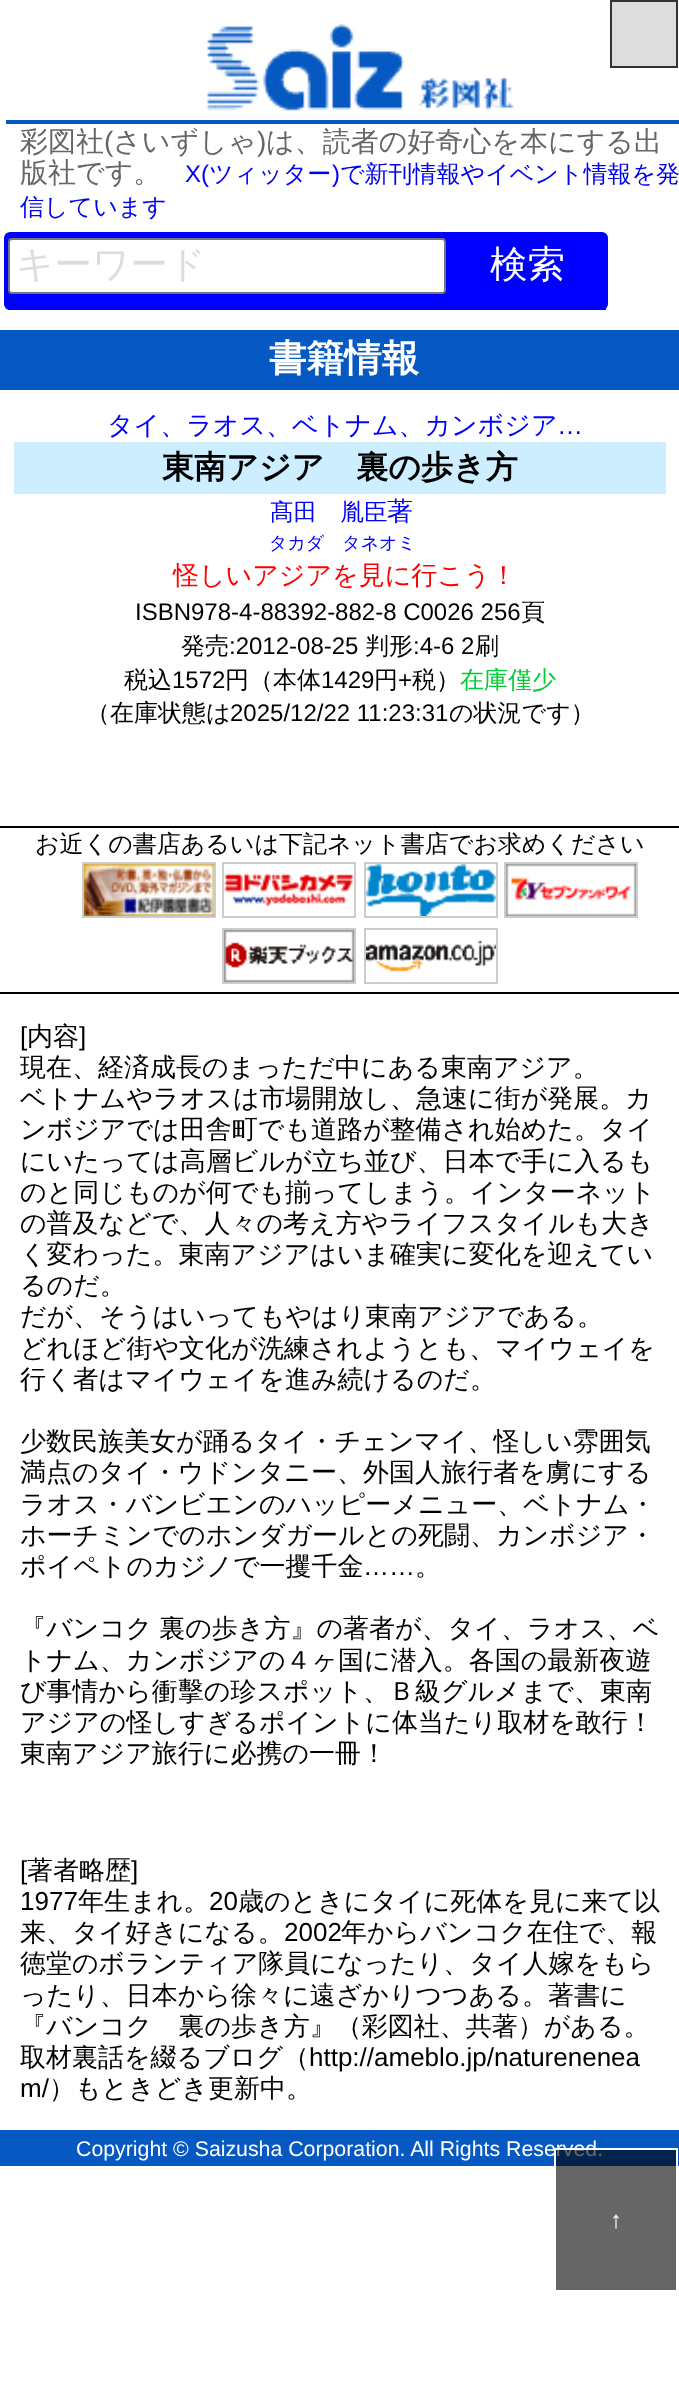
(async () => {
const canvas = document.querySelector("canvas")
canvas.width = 679
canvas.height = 2392
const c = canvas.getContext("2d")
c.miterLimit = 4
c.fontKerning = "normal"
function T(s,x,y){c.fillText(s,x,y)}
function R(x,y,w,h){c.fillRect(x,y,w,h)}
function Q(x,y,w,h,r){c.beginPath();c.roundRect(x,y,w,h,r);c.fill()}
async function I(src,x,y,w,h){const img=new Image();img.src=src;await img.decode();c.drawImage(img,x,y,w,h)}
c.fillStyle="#fff"
R(0,0,679,2392)
c.fillStyle="#0659c1"
R(6,120,673,4)
await I("1.png",205,24,309,87)
c.fillStyle="#ddd"
c.beginPath()
c.rect(611,1,66,66)
c.fill()
c.strokeStyle="#333"
c.lineWidth=2
c.stroke()
c.font="500 28px WenQuanYi Zen Hei"
c.fillStyle="#666"
T("彩図社",20,151)
c.font="28px Liberation Sans"
T("(",104,151)
c.font="500 28px WenQuanYi Zen Hei"
T("さいずしゃ",113,151)
c.font="28px Liberation Sans"
T(")",257,151)
c.font="500 28px WenQuanYi Zen Hei"
T("は、読者の好奇心を本にする出",266,151)
T("版社です。",20,182)
c.font="24px Liberation Sans"
c.fillStyle="#00e"
T("X(",185,182)
c.font="500 24px WenQuanYi Zen Hei"
T("ツィッター",209,182)
c.font="24px Liberation Sans"
T(")",332,182)
c.font="500 24px WenQuanYi Zen Hei"
T("で新刊情報やイベント情報を発",340,182)
T("信しています",20,215)
c.fillStyle="#00f"
Q(4,232,604,78,6)
R(8,308,598,2)
c.fillStyle="#fff"
c.beginPath()
c.roundRect(9,239,436,54,3)
c.fill()
c.strokeStyle="#767676"
c.stroke()
c.font="500 37.5px WenQuanYi Zen Hei"
c.fillStyle="#ddd"
T("キーワード",16,277)
c.fillStyle="#fff"
T("検索",490,277)
c.fillStyle="#0659c2"
R(0,330,679,60)
c.font="bold 37.5px WenQuanYi Zen Hei"
c.fillStyle="#fff"
T("書籍情報",269,371)
c.font="500 26px WenQuanYi Zen Hei"
c.fillStyle="#00f"
T("タイ、ラオス、ベトナム、カンボジア",107,434)
c.font="26px Liberation Sans"
T("…",557,434)
c.fillStyle="#cef"
R(14,442,652,52)
c.font="bold 32px WenQuanYi Zen Hei"
c.fillStyle="#000"
T("東南アジア　裏の歩き方",162,478)
c.font="500 23.5px WenQuanYi Zen Hei"
c.fillStyle="#00f"
T("髙田　胤臣",270,520)
c.font="500 26px WenQuanYi Zen Hei"
T("著",387,520)
c.font="500 18px WenQuanYi Zen Hei"
T("タカダ　タネオミ",269,549)
c.font="500 26px WenQuanYi Zen Hei"
c.fillStyle="#f00"
T("怪しいアジアを見に行こう！",173,584)
c.font="24px Liberation Sans"
c.fillStyle="#000"
T("ISBN978-4-88392-882-8 C0026 256",135,620)
c.font="500 24px WenQuanYi Zen Hei"
T("頁",521,620)
T("発売",181,654)
c.font="24px Liberation Sans"
T(":2012-08-25",229,654)
c.font="500 24px WenQuanYi Zen Hei"
T("判形",365,654)
c.font="24px Liberation Sans"
T(":4-6 2",413,654)
c.font="500 24px WenQuanYi Zen Hei"
T("刷",475,654)
T("税込",124,688)
c.font="24px Liberation Sans"
T("1572",172,688)
c.font="500 24px WenQuanYi Zen Hei"
T("円（本体",225,688)
c.font="24px Liberation Sans"
T("1429",321,688)
c.font="500 24px WenQuanYi Zen Hei"
T("円",374,688)
c.font="24px Liberation Sans"
T("+",398,688)
c.font="500 24px WenQuanYi Zen Hei"
T("税）",412,688)
c.fillStyle="#0c3"
T("在庫僅少",460,688)
c.fillStyle="#000"
T("（在庫状態は",86,721)
c.font="24px Liberation Sans"
T("2025/12/22 11:23:31",230,721)
c.font="500 24px WenQuanYi Zen Hei"
T("の状況です）",449,721)
R(0,826,679,2)
R(0,992,679,2)
T("お近くの書店あるいは下記ネット書店でお求めください",35,852)
c.strokeStyle="#ccc"
c.strokeRect(83,863,132,54)
c.strokeRect(223,863,132,54)
c.strokeRect(365,863,132,54)
c.strokeRect(505,863,132,54)
await I("2.png",84,864,130,52)
await I("3.png",224,873,130,35)
await I("4.png",366,864,130,52)
await I("5.png",506,864,130,52)
c.strokeRect(223,929,132,54)
c.strokeRect(365,929,132,54)
await I("6.png",224,930,130,52)
await I("7.png",366,940,130,32)
c.font="26px Liberation Sans"
T("[",20,1045)
c.font="500 26px WenQuanYi Zen Hei"
T("内容",27,1045)
c.font="26px Liberation Sans"
T("]",79,1045)
c.font="500 26px WenQuanYi Zen Hei"
T("現在、経済成長のまっただ中にある東南アジア。",20,1076)
T("ベトナムやラオスは市場開放し、急速に街が発展。カ",20,1107)
T("ンボジアでは田舎町でも道路が整備され始めた。タイ",20,1138)
T("にいたっては高層ビルが立ち並び、日本で手に入るも",20,1170)
T("のと同じものが何でも揃ってしまう。インターネット",20,1201)
T("の普及などで、人々の考え方やライフスタイルも大き",20,1232)
T("く変わった。東南アジアはいま確実に変化を迎えてい",20,1263)
T("るのだ。",20,1294)
T("だが、そうはいってもやはり東南アジアである。",20,1325)
T("どれほど街や文化が洗練されようとも、マイウェイを",20,1357)
T("行く者はマイウェイを進み続けるのだ。",20,1388)
T("少数民族美女が踊るタイ・チェンマイ、怪しい雰囲気",20,1450)
T("満点のタイ・ウドンタニー、外国人旅行者を虜にする",20,1481)
T("ラオス・バンビエンのハッピーメニュー、ベトナム・",20,1513)
T("ホーチミンでのホンダガールとの死闘、カンボジア・",20,1544)
T("ポイペトのカジノで一攫千金",20,1575)
c.font="26px Liberation Sans"
T("……",363,1575)
c.font="500 26px WenQuanYi Zen Hei"
T("。",415,1575)
c.wordSpacing="-1px"
T("『バンコク 裏の歩き方』の著者が、タイ、ラオス、ベ",20,1637)
c.wordSpacing="0px"
T("トナム、カンボジアの４ヶ国に潜入。各国の最新夜遊",20,1669)
T("び事情から衝擊の珍スポット、Ｂ級グルメまで、東南",20,1700)
T("アジアの怪しすぎるポイントに体当たり取材を敢行！",20,1731)
T("東南アジア旅行に必携の一冊！",20,1762)
c.font="26px Liberation Sans"
T("[",20,1879)
c.font="500 26px WenQuanYi Zen Hei"
T("著者略歴",27,1879)
c.font="26px Liberation Sans"
T("]",131,1879)
T("1977",20,1910)
c.font="500 26px WenQuanYi Zen Hei"
T("年生まれ。",78,1910)
c.font="26px Liberation Sans"
T("20",209,1910)
c.font="500 26px WenQuanYi Zen Hei"
T("歳のときにタイに死体を見に来て以",238,1910)
T("来、タイ好きになる。",20,1941)
c.font="26px Liberation Sans"
T("2002",284,1941)
c.font="500 26px WenQuanYi Zen Hei"
T("年からバンコク在住で、報",341,1941)
T("徳堂のボランティア隊員になったり、タイ人嫁をもら",20,1972)
T("ったり、日本から徐々に遠ざかりつつある。著書に",20,2004)
T("『バンコク　裏の歩き方』（彩図社、共著）がある。",20,2035)
T("取材裏話を綴るブログ（",20,2066)
c.font="26px Liberation Sans"
T("http://ameblo.jp/naturenenea",309,2066)
T("m/",20,2097)
c.font="500 26px WenQuanYi Zen Hei"
T("）もときどき更新中。",49,2097)
c.fillStyle="#0659c2"
R(0,2130,679,36)
c.font="21.3px Liberation Sans"
c.fillStyle="#fff"
T("Copyright © Saizusha Corporation. All Rights Reserved.",76,2156)
c.fillStyle="#00000099"
c.beginPath()
c.rect(555,2149,122,142)
c.fill()
c.strokeStyle="#fff"
c.stroke()
c.font="bold 24px Liberation Sans"
c.fillStyle="#fff"
T("↑",610,2228)
})()
